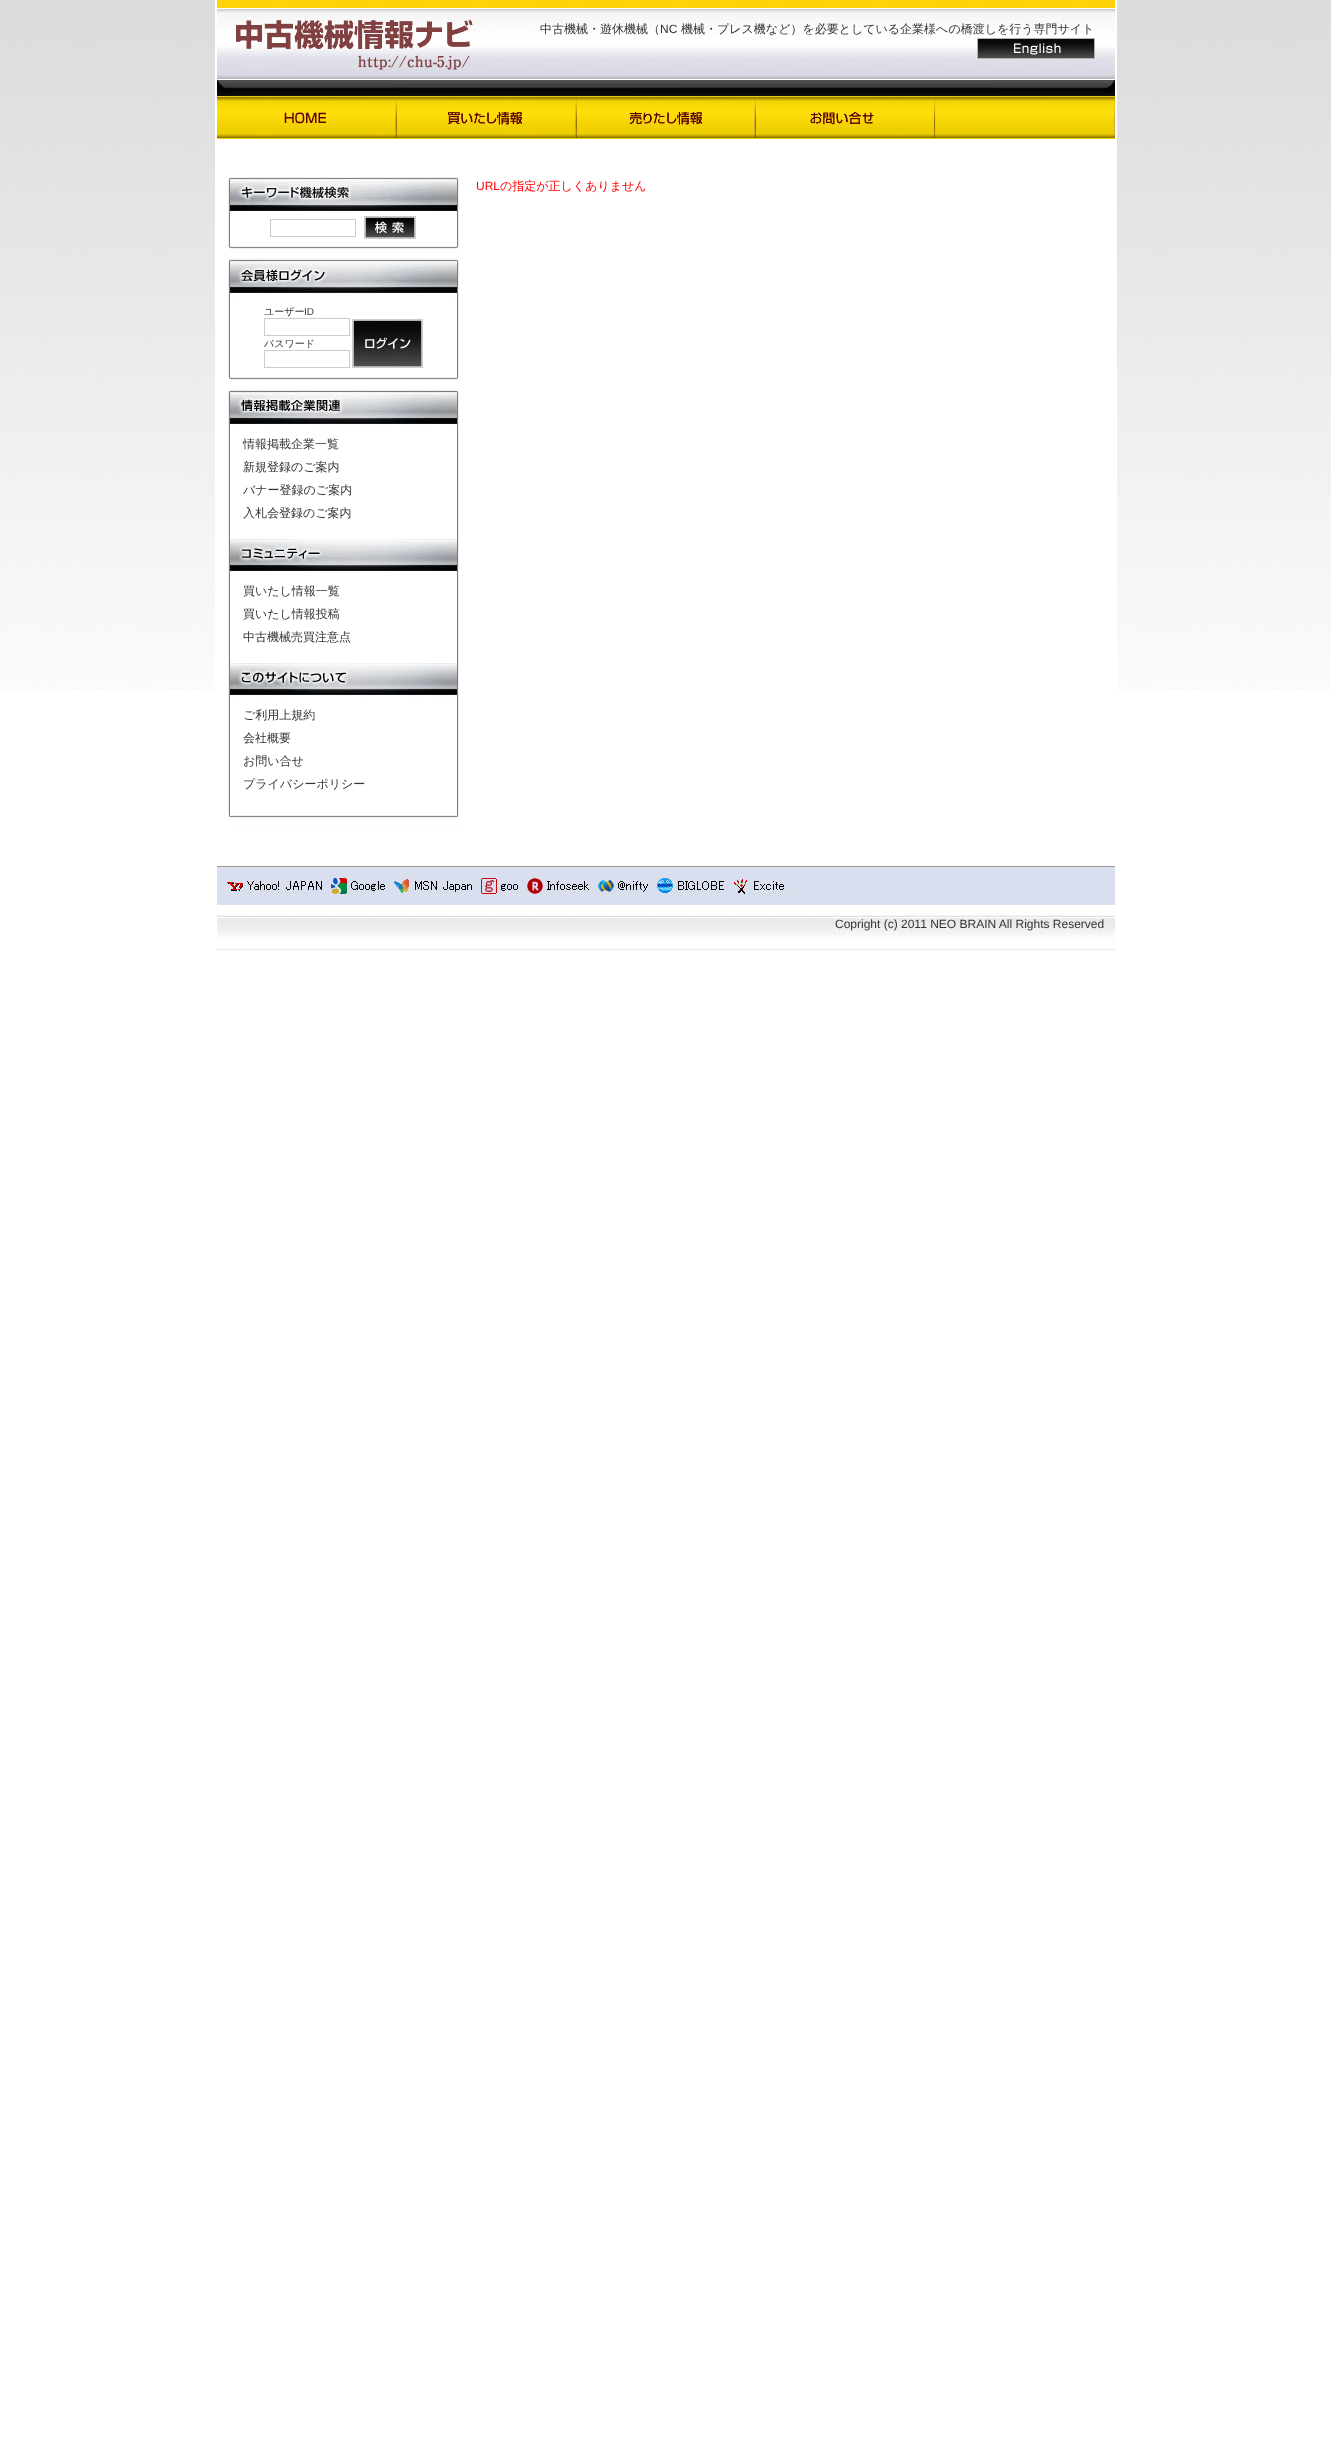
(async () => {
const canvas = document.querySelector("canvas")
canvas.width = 1331
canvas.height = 2438
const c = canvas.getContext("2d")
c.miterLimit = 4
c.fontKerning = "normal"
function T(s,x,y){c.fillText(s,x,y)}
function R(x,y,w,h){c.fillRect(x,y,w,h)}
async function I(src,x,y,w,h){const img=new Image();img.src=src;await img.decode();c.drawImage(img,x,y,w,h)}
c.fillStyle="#fff"
R(0,0,1331,2438)
await I("1.png",0,0,1331,690)
R(215,0,902,690)
await I("2.png",217,0,898,79)
await I("3.png",233,16,240,56)
c.font="500 12px WenQuanYi Zen Hei"
c.fillStyle="#333"
T("中古機械・遊休機械（",540,33)
c.font="12px Liberation Sans"
T("NC",660,33)
c.font="500 12px WenQuanYi Zen Hei"
T("機械・プレス機など）を必要としている企業様への橋渡しを行う専門サイト",681,33)
await I("4.png",977,38,118,21)
await I("5.png",217,80,898,16)
await I("6.png",217,96,179,43)
await I("7.png",396,96,180,43)
await I("8.png",576,96,179,43)
await I("9.png",755,96,179,43)
await I("10.png",934,96,181,43)
c.font="12px Liberation Sans"
c.fillStyle="#f00"
T("URL",476,190)
c.font="500 12px WenQuanYi Zen Hei"
T("の指定が正しくありません",500,190)
await I("11.png",228,211,231,35)
await I("12.png",228,177,231,34)
c.strokeStyle="#ccc"
c.strokeRect(270.5,219.5,85,17)
c.strokeRect(364.5,216.5,51,22)
await I("13.png",365,217,50,21)
await I("14.png",228,246,231,13)
await I("15.png",228,298,231,79)
await I("16.png",228,259,231,39)
c.font="500 10px WenQuanYi Zen Hei"
c.fillStyle="#333"
T("ユーザー",264,315)
c.font="10px Liberation Sans"
T("ID",304,315)
c.strokeRect(264.5,318.5,85,17)
c.strokeRect(352.5,319.5,70,48)
await I("17.png",353,320,69,47)
c.font="500 10px WenQuanYi Zen Hei"
T("パスワード",264,347)
c.strokeRect(264.5,350.5,85,17)
await I("14.png",228,377,231,13)
await I("18.png",228,429,231,386)
await I("19.png",228,390,231,39)
c.font="500 12px WenQuanYi Zen Hei"
T("情報掲載企業一覧",243,448)
T("新規登録のご案内",243,471)
T("バナー登録のご案内",243,494)
T("入札会登録のご案内",243,517)
await I("20.png",229,539,230,38)
T("買いたし情報一覧",243,595)
T("買いたし情報投稿",243,618)
T("中古機械売買注意点",243,641)
await I("21.png",229,663,229,37)
T("ご利用上規約",243,719)
T("会社概要",243,742)
T("お問い合せ",243,765)
T("プライバシーポリシー",243,788)
await I("14.png",228,815,231,13)
c.fillStyle="#d9dfef"
R(217,867,898,38)
c.fillStyle="#999"
R(217,866,898,1)
await I("22.png",227,881,95,10)
await I("23.png",331,878,59,16)
await I("24.png",394,879,80,15)
await I("25.png",481,878,45,16)
await I("26.png",527,878,66,17)
await I("27.png",598,880,57,13)
await I("28.png",657,878,71,15)
await I("29.png",734,879,59,16)
await I("30.png",217,915,898,35)
c.font="12px Liberation Sans"
c.fillStyle="#333"
T("Copright (c) 2011 NEO BRAIN All Rights Reserved",835,928)
})()
